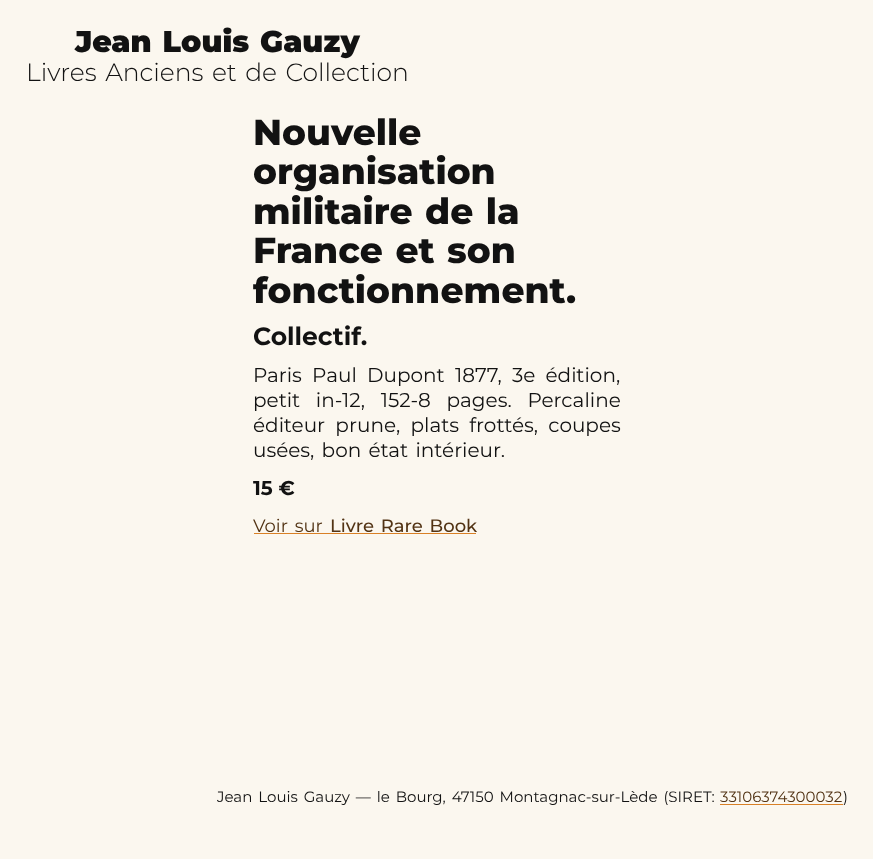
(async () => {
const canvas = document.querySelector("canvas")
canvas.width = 873
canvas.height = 859
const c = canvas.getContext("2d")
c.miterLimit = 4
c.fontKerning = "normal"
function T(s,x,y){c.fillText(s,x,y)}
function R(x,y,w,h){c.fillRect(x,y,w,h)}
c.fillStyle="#fbf7ef"
R(0,0,873,859)
c.wordSpacing="2px"
c.font="900 30px Montserrat"
c.fillStyle="#121212"
T("Jean Louis Gauzy",75,52)
c.font="300 25px Montserrat"
T("Livres Anciens et de Collection",26,81)
c.wordSpacing="0px"
c.font="800 36px Montserrat"
T("Nouvelle",253,145)
T("organisation",253,184)
c.wordSpacing="2px"
T("militaire de la",253,224)
T("France et son",253,263)
c.wordSpacing="0px"
T("fonctionnement.",253,303)
c.font="bold 25px Montserrat"
T("Collectif.",253,345)
c.wordSpacing="5px"
c.font="20px Montserrat"
T("Paris Paul Dupont 1877, 3e édition,",253,382)
c.wordSpacing="10.5px"
T("petit in-12, 152-8 pages. Percaline",253,407)
c.wordSpacing="5px"
T("éditeur prune, plats frottés, coupes",253,432)
c.wordSpacing="2px"
T("usées, bon état intérieur.",253,457)
c.wordSpacing="0px"
c.font="bold 20px Montserrat"
T("15 €",253,495)
c.wordSpacing="2px"
c.font="18px Montserrat"
c.fillStyle="#523314"
T("Voir sur",253,532)
c.fillStyle="#d98026"
R(254,533,222,1)
c.font="500 18px Montserrat"
c.fillStyle="#523314"
T("Livre Rare Book",330,532)
c.font="15px Montserrat"
c.fillStyle="#121212"
T("Jean Louis Gauzy — le Bourg, 47150 Montagnac-sur-Lède (SIRET:",217,802)
c.wordSpacing="0px"
c.fillStyle="#523314"
T("33106374300032",720,802)
c.fillStyle="#d98026"
R(720,804,123,1)
c.fillStyle="#121212"
T(")",843,802)
})()
